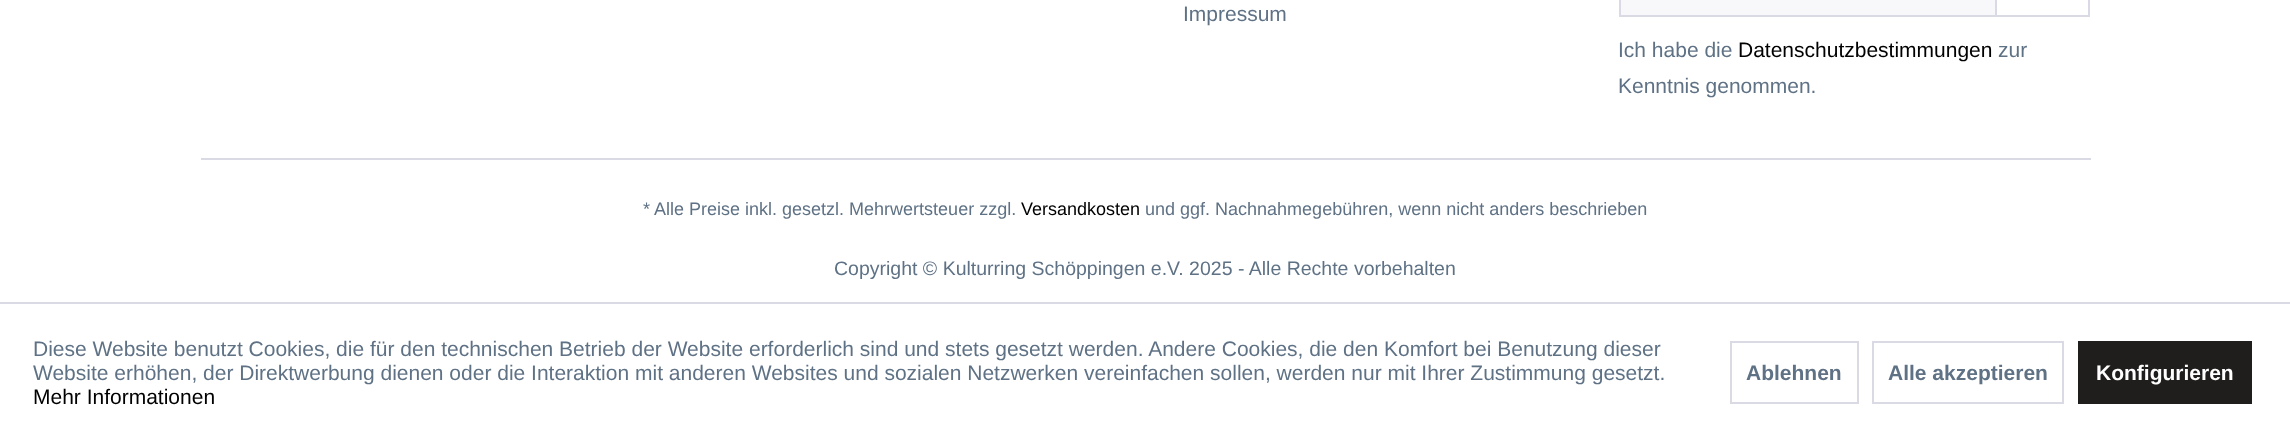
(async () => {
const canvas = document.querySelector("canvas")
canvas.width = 2290
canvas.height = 441
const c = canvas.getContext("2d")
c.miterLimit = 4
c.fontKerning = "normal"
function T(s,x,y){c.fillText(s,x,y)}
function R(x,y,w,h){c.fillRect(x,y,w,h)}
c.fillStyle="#fff"
R(0,0,2290,441)
c.fillStyle="#dadae5"
R(201,158,1890,2)
c.font="21px Liberation Sans"
c.fillStyle="#5f7285"
T("Impressum",1183,21)
c.fillStyle="#f8f8fa"
R(1621,0,374,15)
c.fillStyle="#dadae5"
R(1619,15,378,2)
R(1619,0,2,17)
c.strokeStyle="#dadae5"
c.lineWidth=2
c.strokeRect(1996,-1,93,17)
c.fillStyle="#5f7285"
T("Ich habe die",1618,57)
c.fillStyle="#000"
T("Datenschutzbestimmungen",1738,57)
c.fillStyle="#5f7285"
T("zur",1998,57)
T("Kenntnis genommen.",1618,93)
c.font="18px Liberation Sans"
T("* Alle Preise inkl. gesetzl. Mehrwertsteuer zzgl.",643,215)
c.fillStyle="#000"
T("Versandkosten",1021,215)
c.fillStyle="#5f7285"
T("und ggf. Nachnahmegebühren, wenn nicht anders beschrieben",1145,215)
c.font="19.5px Liberation Sans"
T("Copyright © Kulturring Schöppingen e.V. 2025 - Alle Rechte vorbehalten",834,275)
c.fillStyle="#dadae5"
R(0,302,2290,2)
c.font="21px Liberation Sans"
c.fillStyle="#5f7285"
T("Diese Website benutzt Cookies, die für den technischen Betrieb der Website erforderlich sind und stets gesetzt werden. Andere Cookies, die den Komfort bei Benutzung dieser",33,356)
T("Website erhöhen, der Direktwerbung dienen oder die Interaktion mit anderen Websites und sozialen Netzwerken vereinfachen sollen, werden nur mit Ihrer Zustimmung gesetzt.",33,380)
c.fillStyle="#000"
T("Mehr Informationen",33,404)
c.strokeRect(1731,342,127,61)
c.font="bold 21px Liberation Sans"
c.fillStyle="#5f7285"
T("Ablehnen",1746,380)
c.strokeRect(1873,342,190,61)
T("Alle akzeptieren",1888,380)
c.fillStyle="#201d1d"
R(2078,341,174,63)
c.fillStyle="#fff"
T("Konfigurieren",2096,380)
})()
